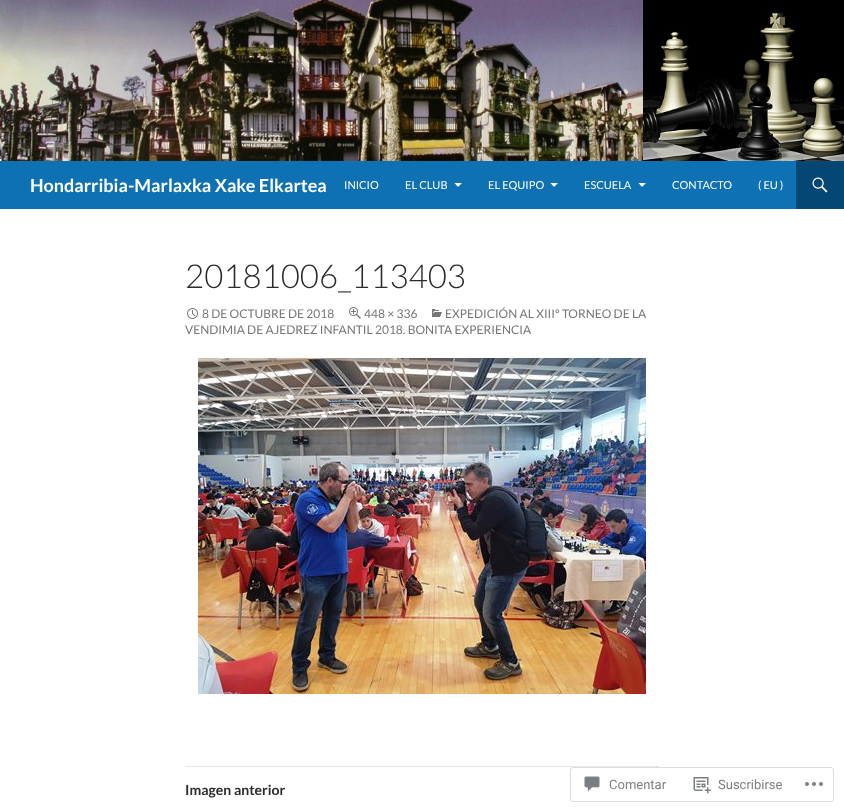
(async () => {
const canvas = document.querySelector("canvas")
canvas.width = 844
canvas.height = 812
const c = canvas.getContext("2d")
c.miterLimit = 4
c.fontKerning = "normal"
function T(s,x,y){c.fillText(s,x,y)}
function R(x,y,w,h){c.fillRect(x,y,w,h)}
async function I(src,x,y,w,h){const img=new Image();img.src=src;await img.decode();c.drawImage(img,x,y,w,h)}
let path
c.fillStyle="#fff"
R(0,0,844,812)
await I("1.png",0,0,844,161)
c.fillStyle="#0d71b4"
R(0,161,796,48)
c.font="bold 18px Lato"
c.fillStyle="#fff"
T("Hondarribia-Marlaxka Xake Elkartea",30,192)
c.font="11px Lato"
T("INICIO",344,189)
T("EL CLUB",405,189)
path = new Path2D("M454.5 183h7.5l-4 4z")
c.fill(path)
T("EL EQUIPO",488,189)
path = new Path2D("M550.5 183h7.5l-4 4z")
c.fill(path)
T("ESCUELA",584,189)
path = new Path2D("M638.5 183h7.5l-4 4z")
c.fill(path)
T("CONTACTO",672,189)
T("( EU )",758,189)
c.fillStyle="#044774"
R(796,161,48,48)
await I("2.png",812,177,16,16)
c.font="300 33px Lato"
c.fillStyle="#2b2b2b"
T("20181006_113403",185,288)
await I("3.png",432,309,10,8)
c.font="12px Lato"
c.fillStyle="#767676"
T("EXPEDICIÓN AL XIIIº TORNEO DE LA",445,318)
T("VENDIMIA DE AJEDREZ INFANTIL 2018. BONITA EXPERIENCIA",185,334)
await I("4.png",187,308,11,11)
T("8 DE OCTUBRE DE 2018",202,318)
await I("5.png",349,307,12,12)
T("448 × 336",364,318)
await I("6.png",198,358,448,336)
c.fillStyle="#e6e6e6"
R(185,766,474,1)
c.font="bold 14px Lato"
c.fillStyle="#2b2b2b"
T("Imagen anterior",185,795)
c.beginPath()
c.roundRect(570.5,767.5,263,34,2.5)
c.strokeStyle="#dddddf"
c.stroke()
await I("7.png",584,776,16,16)
c.font="13px Roboto"
c.fillStyle="#7b7f85"
T("Comentar",609,789)
await I("8.png",693,777,18,17)
T("Suscribirse",718,789)
await I("9.png",805,782,18,4)
})()
